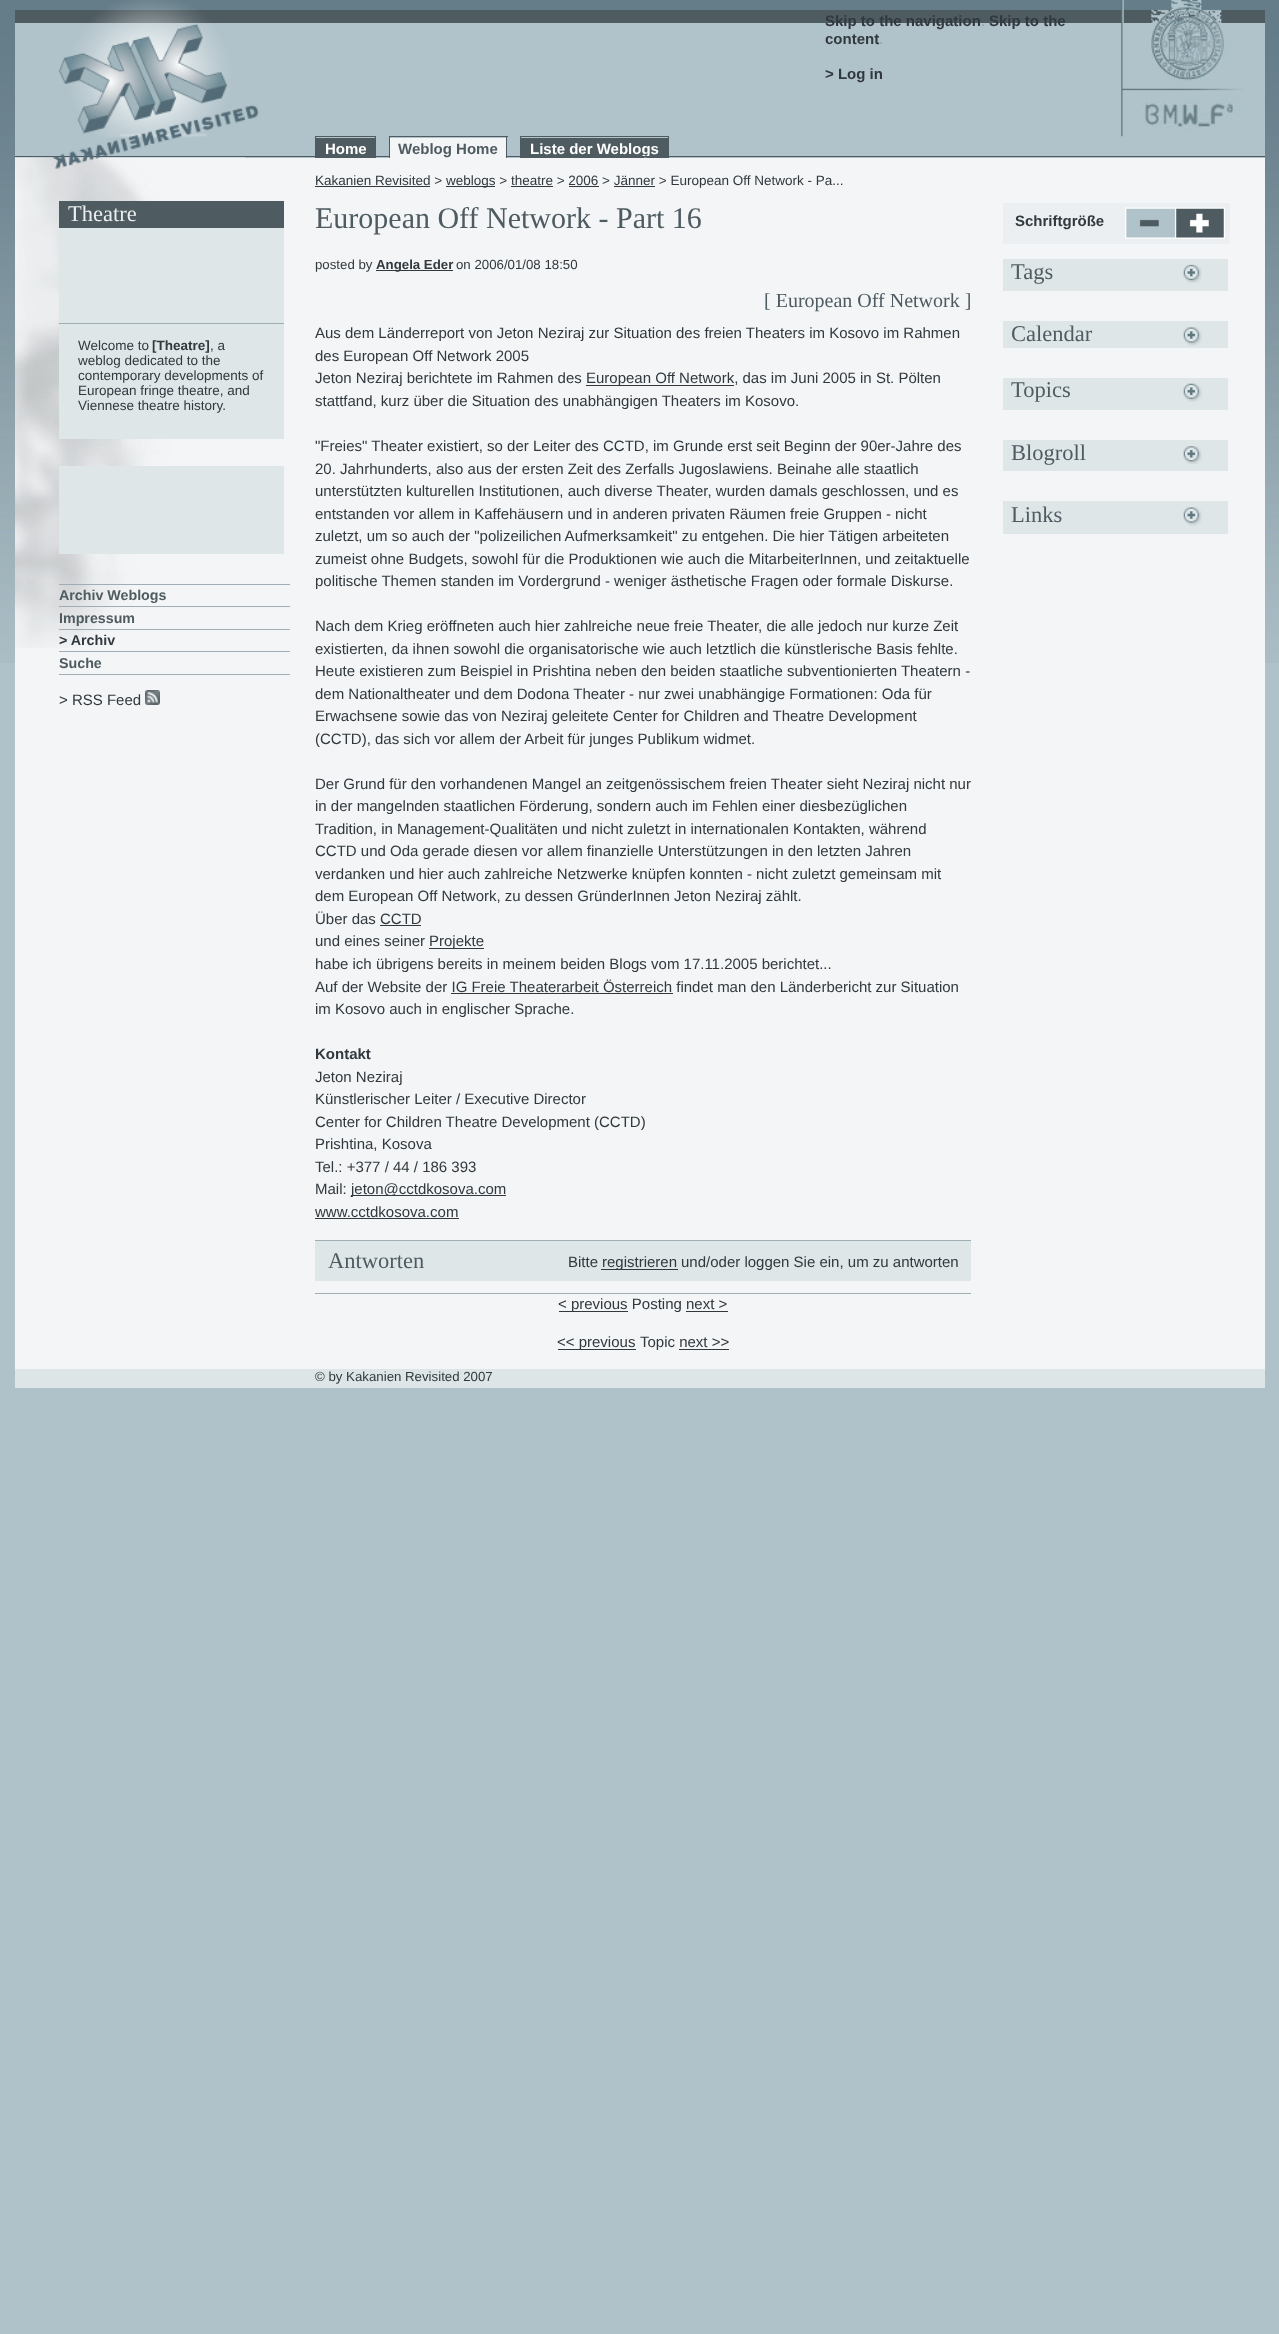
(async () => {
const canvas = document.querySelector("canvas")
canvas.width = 1279
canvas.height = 2334
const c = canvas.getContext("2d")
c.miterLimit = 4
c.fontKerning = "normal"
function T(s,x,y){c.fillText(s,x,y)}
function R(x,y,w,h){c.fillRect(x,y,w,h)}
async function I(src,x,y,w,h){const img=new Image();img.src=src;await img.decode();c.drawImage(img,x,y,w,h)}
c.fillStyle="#afc2c9"
R(0,0,1279,2334)
await I("1.png",0,0,1279,663)
c.fillStyle="#b1c3ca"
R(15,23,1250,135)
c.fillStyle="#4e5b61"
R(15,10,1250,13)
R(316,138,59,20)
R(315,136,61,1)
R(375,136,1,22)
R(315,136,1,22)
R(521,138,147,20)
c.font="bold 15px Liberation Sans"
c.fillStyle="#fff"
T("Liste der Weblogs",530,154)
c.fillStyle="#4e5b61"
R(520,136,149,1)
R(668,136,1,22)
R(520,136,1,22)
R(15,156,1250,1)
c.fillStyle="#f3f5f6"
R(15,158,1250,1211)
await I("4.png",15,157,230,491)
await I("2.png",52,0,207,169)
c.fillStyle="#31383e"
T("Skip to the navigation",825,26)
c.font="15px Liberation Sans"
c.fillStyle="#999"
T(".",981,26)
c.font="bold 15px Liberation Sans"
c.fillStyle="#31383e"
T("Skip to the",989,26)
T("content",825,44)
c.font="15px Liberation Sans"
c.fillStyle="#999"
T(".",879,44)
c.font="bold 15px Liberation Sans"
c.fillStyle="#31383e"
T("> Log in",825,79)
await I("3.png",1121,0,125,137)
c.fillStyle="#fff"
T("Home",325,154)
c.fillStyle="#f3f5f6"
R(390,138,116,20)
c.fillStyle="#4e5b61"
T("Weblog Home",398,154)
R(389,136,119,1)
R(506,136,1,22)
R(389,136,1,22)
R(59,201,225,27)
c.font="22.5px Liberation Serif"
c.fillStyle="#ebeff1"
T("Theatre",68,221)
c.fillStyle="#dee6e8"
R(59,228,225,95)
R(59,324,225,115)
c.fillStyle="#9eaeb4"
R(59,323,225,1)
c.font="13.5px Liberation Sans"
c.fillStyle="#31383e"
T("Welcome to",78,350)
c.font="bold 13.5px Liberation Sans"
T("[Theatre]",152,350)
c.font="13.5px Liberation Sans"
T(", a",210,350)
T("weblog dedicated to the",78,365)
T("contemporary developments of",78,380)
T("European fringe theatre, and",78,395)
T("Viennese theatre history.",78,410)
c.fillStyle="#dee6e8"
R(59,466,225,88)
c.fillStyle="#9eaeb4"
R(59,584,231,1)
R(59,606,231,1)
c.font="bold 14.25px Liberation Sans"
c.fillStyle="#4e5b61"
T("Archiv Weblogs",59,600)
c.fillStyle="#9eaeb4"
R(59,629,231,1)
c.fillStyle="#4e5b61"
T("Impressum",59,623)
c.fillStyle="#9eaeb4"
R(59,651,231,1)
c.fillStyle="#31383e"
T("> Archiv",59,645)
c.fillStyle="#9eaeb4"
R(59,674,231,1)
c.fillStyle="#4e5b61"
T("Suche",59,668)
c.font="15px Liberation Sans"
c.fillStyle="#31383e"
T("> RSS Feed",59,705)
await I("5.png",145,690,15,15)
c.font="13.5px Liberation Sans"
T("Kakanien Revisited >",315,185)
R(315,186,115,1)
R(446,186,49,1)
T("weblogs > theatre > 2006 > Jänner > European Off Network - Pa...",446,185)
R(511,186,42,1)
R(569,186,30,1)
R(614,186,41,1)
c.font="30px Liberation Serif"
c.fillStyle="#4e5b61"
T("European Off Network - Part 16",315,228)
c.font="13.25px Liberation Sans"
c.fillStyle="#31383e"
T("posted by",315,269)
R(376,270,77,1)
c.font="bold 13.25px Liberation Sans"
T("Angela Eder",376,269)
c.font="13.25px Liberation Sans"
T("on 2006/01/08 18:50",456,269)
c.font="20px Liberation Serif"
c.fillStyle="#4e5b61"
T("[ European Off Network ]",764,307)
c.font="15px Liberation Sans"
c.fillStyle="#31383e"
T("Aus dem Länderreport von Jeton Neziraj zur Situation des freien Theaters im Kosovo im Rahmen",315,338)
T("des European Off Network 2005",315,361)
T("Jeton Neziraj berichtete im Rahmen des",315,383)
R(586,385,148,1)
T("European Off Network, das im Juni 2005 in St. Pölten",586,383)
T("stattfand, kurz über die Situation des unabhängigen Theaters im Kosovo.",315,406)
T("\"Freies\" Theater existiert, so der Leiter des CCTD, im Grunde erst seit Beginn der 90er-Jahre des",315,451)
T("20. Jahrhunderts, also aus der ersten Zeit des Zerfalls Jugoslawiens. Beinahe alle staatlich",315,474)
T("unterstützten kulturellen Institutionen, auch diverse Theater, wurden damals geschlossen, und es",315,496)
T("entstanden vor allem in Kaffehäusern und in anderen privaten Räumen freie Gruppen - nicht",315,519)
T("zuletzt, um so auch der \"polizeilichen Aufmerksamkeit\" zu entgehen. Die hier Tätigen arbeiteten",315,541)
T("zumeist ohne Budgets, sowohl für die Produktionen wie auch die MitarbeiterInnen, und zeitaktuelle",315,564)
T("politische Themen standen im Vordergrund - weniger ästhetische Fragen oder formale Diskurse.",315,586)
T("Nach dem Krieg eröffneten auch hier zahlreiche neue freie Theater, die alle jedoch nur kurze Zeit",315,631)
T("existierten, da ihnen sowohl die organisatorische wie auch letztlich die künstlerische Basis fehlte.",315,654)
T("Heute existieren zum Beispiel in Prishtina neben den beiden staatliche subventionierten Theatern -",315,676)
T("dem Nationaltheater und dem Dodona Theater - nur zwei unabhängige Formationen: Oda für",315,699)
T("Erwachsene sowie das von Neziraj geleitete Center for Children and Theatre Development",315,721)
T("(CCTD), das sich vor allem der Arbeit für junges Publikum widmet.",315,744)
T("Der Grund für den vorhandenen Mangel an zeitgenössischem freien Theater sieht Neziraj nicht nur",315,789)
T("in der mangelnden staatlichen Förderung, sondern auch im Fehlen einer diesbezüglichen",315,811)
T("Tradition, in Management-Qualitäten und nicht zuletzt in internationalen Kontakten, während",315,834)
T("CCTD und Oda gerade diesen vor allem finanzielle Unterstützungen in den letzten Jahren",315,856)
T("verdanken und hier auch zahlreiche Netzwerke knüpfen konnten - nicht zuletzt gemeinsam mit",315,879)
T("dem European Off Network, zu dessen GründerInnen Jeton Neziraj zählt.",315,901)
T("Über das CCTD",315,924)
R(380,925,41,1)
T("und eines seiner",315,946)
R(429,948,55,1)
T("Projekte",429,946)
T("habe ich übrigens bereits in meinem beiden Blogs vom 17.11.2005 berichtet...",315,969)
T("Auf der Website der IG Freie Theaterarbeit Österreich findet man den Länderbericht zur Situation",315,992)
R(451,993,222,1)
T("im Kosovo auch in englischer Sprache.",315,1014)
c.font="bold 15px Liberation Sans"
T("Kontakt",315,1059)
c.font="15px Liberation Sans"
T("Jeton Neziraj",315,1082)
T("Künstlerischer Leiter / Executive Director",315,1104)
T("Center for Children Theatre Development (CCTD)",315,1127)
T("Prishtina, Kosova",315,1149)
T("Tel.: +377 / 44 / 186 393",315,1172)
T("Mail:",315,1194)
R(351,1195,155,1)
T("jeton@cctdkosova.com",351,1194)
T("www.cctdkosova.com",315,1217)
R(315,1218,144,1)
c.fillStyle="#9eaeb4"
R(315,1240,656,1)
c.fillStyle="#dee6e8"
R(315,1241,656,40)
c.font="22.5px Liberation Serif"
c.fillStyle="#4e5b61"
T("Antworten",328,1268)
c.font="15px Liberation Sans"
c.fillStyle="#31383e"
T("Bitte",568,1267)
R(601,1269,77,1)
T("registrieren",602,1267)
T("und/oder loggen Sie ein, um zu antworten",681,1267)
c.fillStyle="#9eaeb4"
R(315,1293,656,1)
c.fillStyle="#31383e"
R(559,1311,69,1)
T("< previous Posting next >",558,1309)
R(686,1311,42,1)
R(558,1349,78,1)
T("<< previous",557,1347)
T("Topic next >>",640,1347)
R(679,1349,50,1)
c.fillStyle="#ebeff1"
R(1003,203,227,41)
c.font="bold 15px Liberation Sans"
c.fillStyle="#31383e"
T("Schriftgröße",1015,226)
await I("6.png",1125,207,52,32)
await I("7.png",1176,207,49,32)
c.fillStyle="#dee6e8"
R(1003,259,225,32)
c.font="22.5px Liberation Serif"
c.fillStyle="#4e5b61"
T("Tags",1011,279)
await I("8.png",1183,264,19,19)
c.fillStyle="#dee6e8"
R(1003,321,225,27)
c.fillStyle="#4e5b61"
T("Calendar",1011,341)
await I("9.png",1183,327,19,19)
c.fillStyle="#dee6e8"
R(1003,378,225,32)
c.fillStyle="#4e5b61"
T("Topics",1011,397)
await I("10.png",1183,383,19,19)
c.fillStyle="#dee6e8"
R(1003,440,225,31)
c.fillStyle="#4e5b61"
T("Blogroll",1011,460)
await I("11.png",1183,446,19,18)
c.fillStyle="#dee6e8"
R(1003,501,225,33)
c.fillStyle="#4e5b61"
T("Links",1011,522)
await I("9.png",1183,507,19,19)
c.fillStyle="#dde5e7"
R(15,1369,1250,19)
c.font="13.25px Liberation Sans"
c.fillStyle="#31383e"
T("© by Kakanien Revisited 2007",315,1381)
})()
